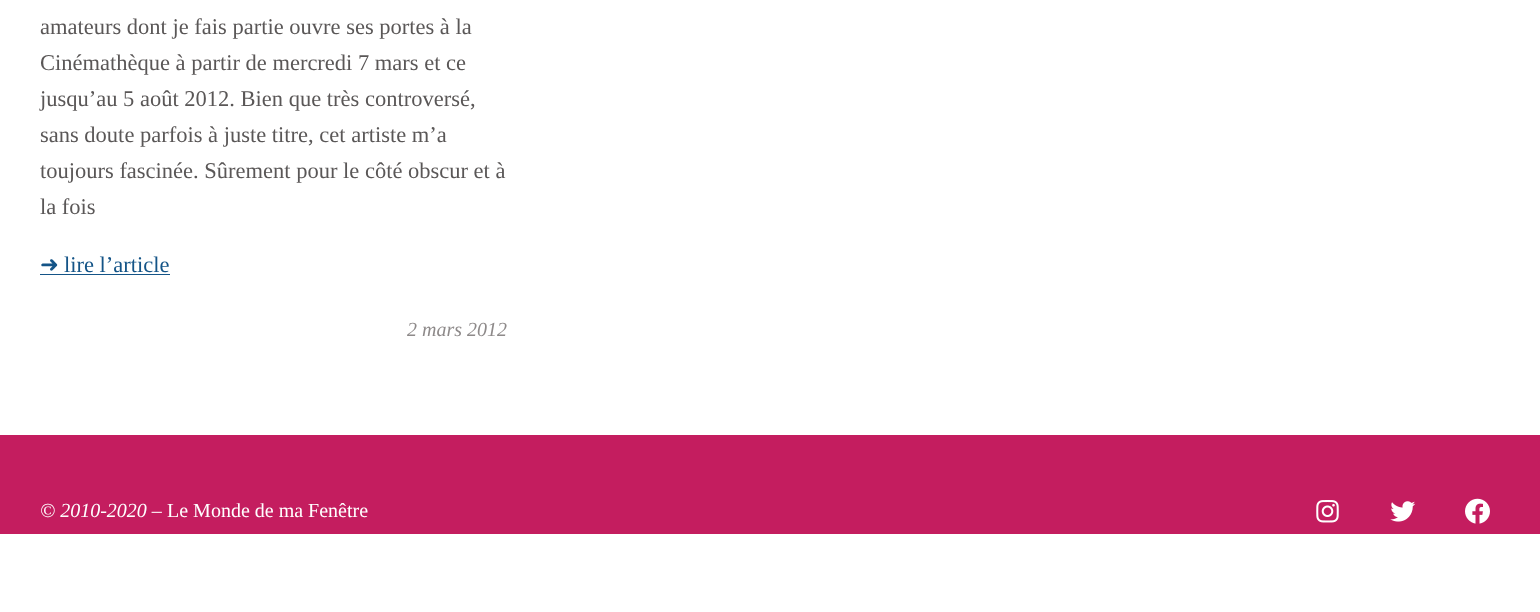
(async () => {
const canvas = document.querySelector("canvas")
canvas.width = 1540
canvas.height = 612
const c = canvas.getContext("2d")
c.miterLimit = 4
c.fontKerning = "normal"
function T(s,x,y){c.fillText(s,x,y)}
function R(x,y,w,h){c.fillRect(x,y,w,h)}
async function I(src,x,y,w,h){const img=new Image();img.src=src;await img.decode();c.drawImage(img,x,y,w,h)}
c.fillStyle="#fff"
R(0,0,1540,612)
c.font="22.5px Liberation Serif"
c.fillStyle="#5a5757"
T("amateurs dont je fais partie ouvre ses portes à la",40,34)
T("Cinémathèque à partir de mercredi 7 mars et ce",40,70)
T("jusqu’au 5 août 2012. Bien que très controversé,",40,106)
T("sans doute parfois à juste titre, cet artiste m’a",40,142)
T("toujours fascinée. Sûrement pour le côté obscur et à",40,178)
T("la fois",40,214)
c.font="22.5px DejaVu Sans"
c.fillStyle="#145487"
T("➜",40,272)
R(40,274,130,1)
c.font="22.5px Liberation Serif"
T("lire l’article",64,272)
c.font="italic 20px Liberation Serif"
c.fillStyle="#8e8a8a"
T("2 mars 2012",407,336)
c.fillStyle="#c41d5f"
R(0,435,1540,99)
c.fillStyle="#fff"
T("© 2010-2020 –",40,517)
c.font="20px Liberation Serif"
T("Le Monde de ma Fenêtre",167,517)
await I("1.png",1316,500,23,23)
await I("2.png",1390,501,26,21)
await I("3.png",1465,498,25,26)
})()
